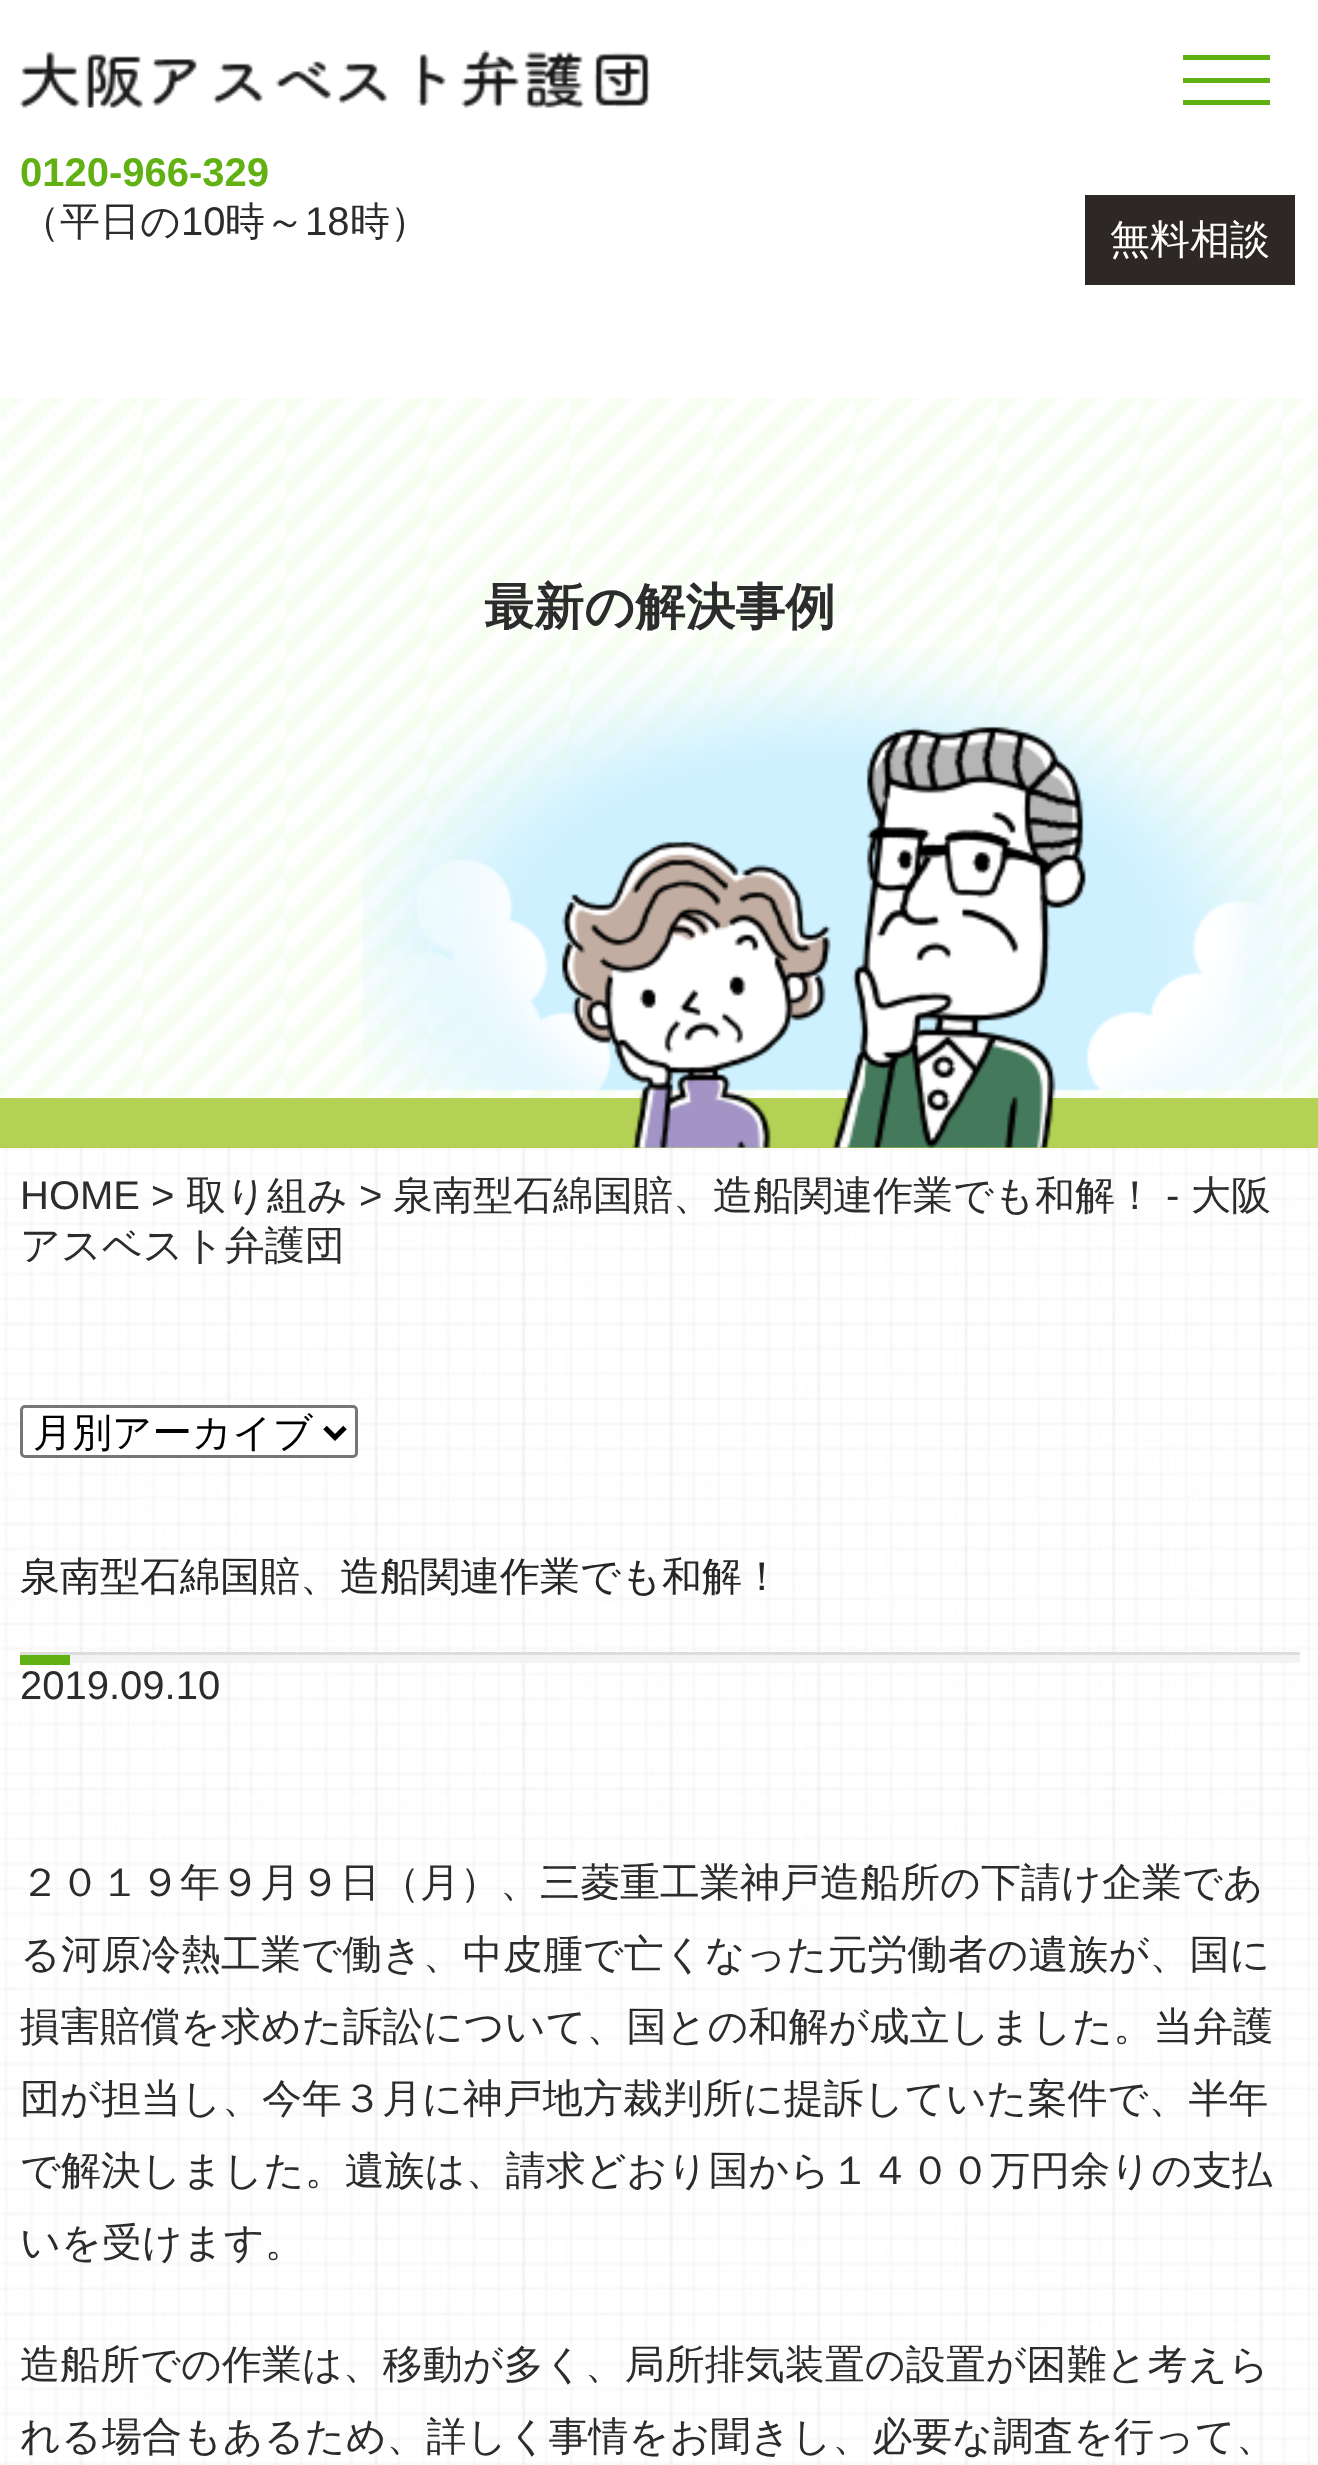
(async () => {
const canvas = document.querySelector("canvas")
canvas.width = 1318
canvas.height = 2465
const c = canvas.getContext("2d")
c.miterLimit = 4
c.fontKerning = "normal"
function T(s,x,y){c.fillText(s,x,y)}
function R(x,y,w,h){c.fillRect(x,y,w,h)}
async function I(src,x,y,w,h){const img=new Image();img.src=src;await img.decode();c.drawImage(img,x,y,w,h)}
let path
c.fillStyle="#fff"
R(0,0,1318,2465)
await I("1.png",0,1148,1318,1317)
c.fillStyle="#60b111"
R(1183,55,87,5)
R(1183,78,87,5)
R(1183,100,87,5)
await I("2.png",20,50,630,58)
c.font="bold 40px Liberation Sans"
T("0120-966-329",20,186)
c.font="500 40px WenQuanYi Zen Hei"
c.fillStyle="#2c2c2c"
T("（平日の",20,235)
c.font="40px Liberation Sans"
T("10",181,235)
c.font="500 40px WenQuanYi Zen Hei"
T("時～",225,235)
c.font="40px Liberation Sans"
T("18",305,235)
c.font="500 40px WenQuanYi Zen Hei"
T("時）",350,235)
c.fillStyle="#2d2825"
R(1085,195,210,90)
c.fillStyle="#fff"
T("無料相談",1110,253)
await I("3.png",0,398,1318,700)
c.fillStyle="#b2d155"
R(0,1098,1318,50)
c.font="bold 50px WenQuanYi Zen Hei"
c.fillStyle="#2c2c2c"
T("最新の解決事例",484,624)
await I("4.png",362,648,956,500)
c.font="40px Liberation Sans"
T("HOME >",20,1209)
c.font="500 40px WenQuanYi Zen Hei"
T("取り組み",186,1209)
c.font="40px Liberation Sans"
T(">",359,1209)
c.font="500 40px WenQuanYi Zen Hei"
T("泉南型石綿国賠、造船関連作業でも和解！",393,1209)
c.font="40px Liberation Sans"
T("-",1166,1209)
c.font="500 40px WenQuanYi Zen Hei"
T("大阪",1191,1209)
T("アスベスト弁護団",20,1259)
c.fillStyle="#fff"
c.beginPath()
c.roundRect(21.5,1406.5,335,50,3.5)
c.fill()
c.strokeStyle="#767676"
c.lineWidth=3
c.stroke()
path = new Path2D("M325 1427.5l10 10l10-10")
c.strokeStyle="#000"
c.lineWidth=5
c.stroke(path)
c.font="500 39.5px WenQuanYi Zen Hei"
c.fillStyle="#000"
T("月別アーカイブ",33,1446)
c.fillStyle="#f3f3f3"
R(70,1655,1230,8)
c.fillStyle="#ddd"
R(20,1652,1280,3)
c.font="500 40px WenQuanYi Zen Hei"
c.fillStyle="#262626"
T("泉南型石綿国賠、造船関連作業でも和解！",20,1590)
c.fillStyle="#60b111"
R(20,1655,50,10)
c.font="40px Liberation Sans"
c.fillStyle="#2c2c2c"
T("2019.09.10",20,1699)
c.font="500 40px WenQuanYi Zen Hei"
T("２０１９年９月９日（月）、三菱重工業神戸造船所の下請け企業であ",20,1896)
T("る河原冷熱工業で働き、中皮腫で亡くなった元労働者の遺族が、国に",20,1968)
T("損害賠償を求めた訴訟について、国との和解が成立しました。当弁護",20,2040)
T("団が担当し、今年３月に神戸地方裁判所に提訴していた案件で、半年",20,2112)
T("で解決しました。遺族は、請求どおり国から１４００万円余りの支払",20,2184)
T("いを受けます。",20,2256)
T("造船所での作業は、移動が多く、局所排気装置の設置が困難と考えら",20,2378)
T("れる場合もあるため、詳しく事情をお聞きし、必要な調査を行って、",20,2450)
})()
